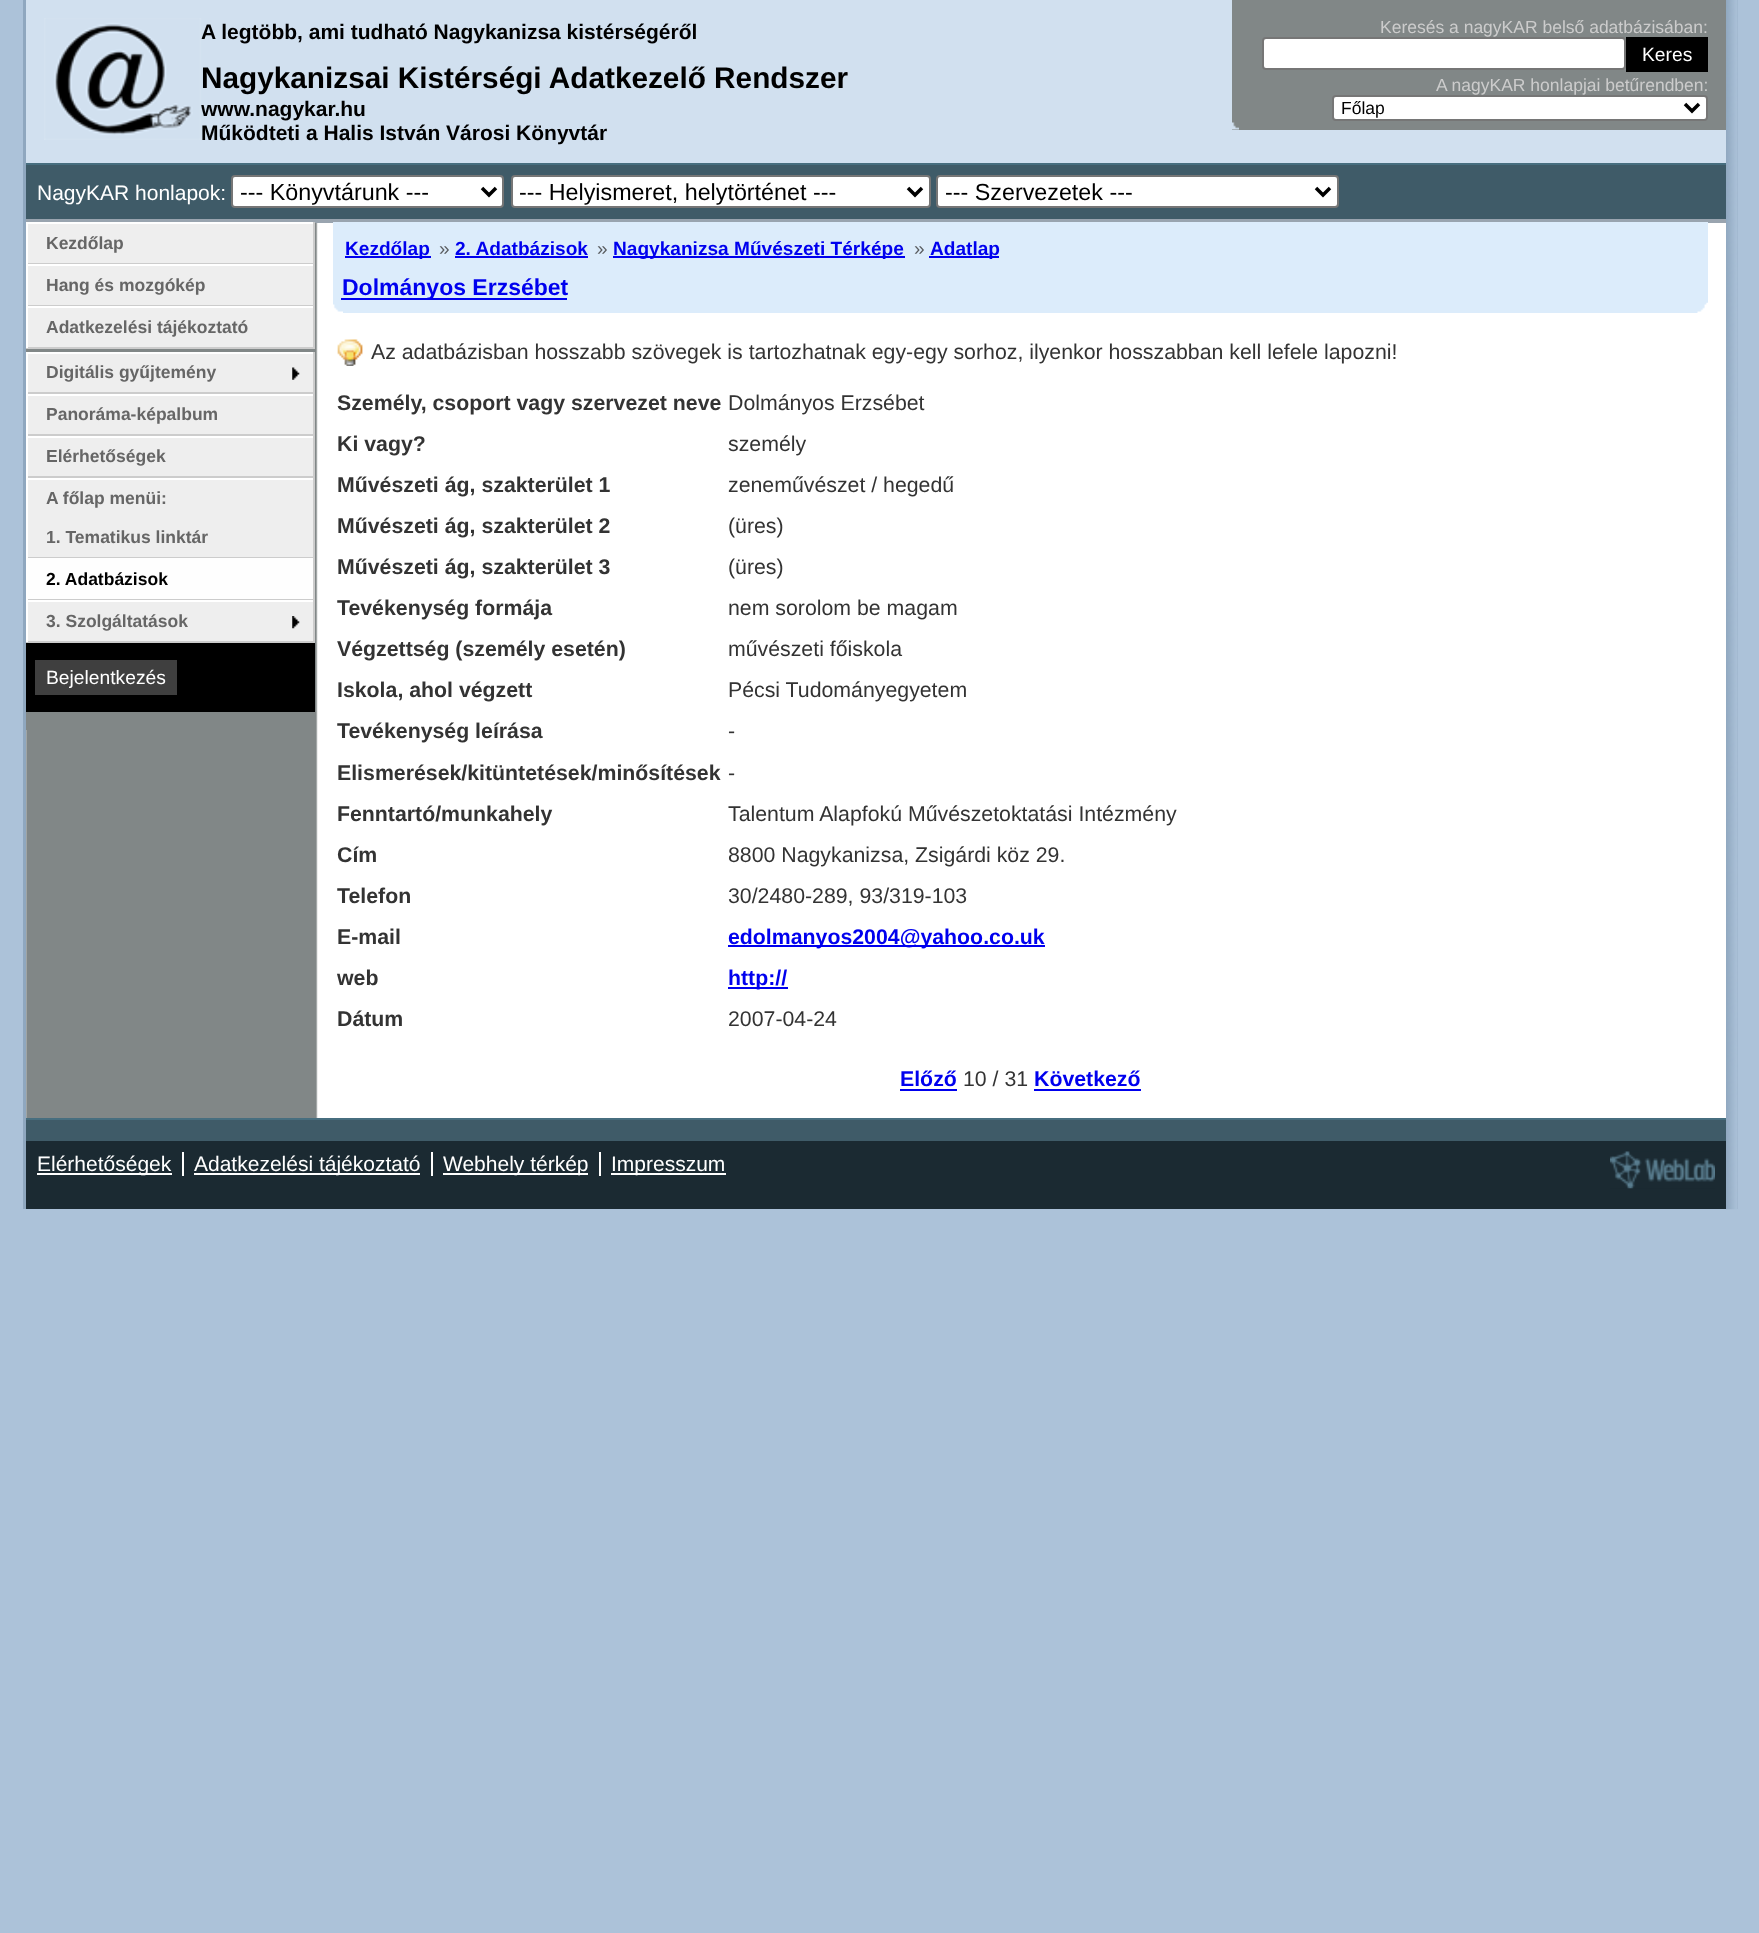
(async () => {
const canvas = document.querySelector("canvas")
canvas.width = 1759
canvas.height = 1933
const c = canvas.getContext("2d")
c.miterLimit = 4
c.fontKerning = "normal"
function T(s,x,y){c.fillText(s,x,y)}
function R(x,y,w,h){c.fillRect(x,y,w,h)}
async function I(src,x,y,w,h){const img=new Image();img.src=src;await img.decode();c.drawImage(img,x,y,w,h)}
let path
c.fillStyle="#acc2d9"
R(0,0,1759,1933)
c.fillStyle="#8fa7bf"
R(23,0,1715,1209)
await I("1.png",1726,0,12,1210)
c.fillStyle="#fff"
R(26,223,1700,895)
await I("2.png",26,223,1700,895)
c.fillStyle="#d1e0ef"
R(26,0,1700,163)
c.fillStyle="#99a4af"
R(26,219,1700,4)
c.font="bold 21px Liberation Sans"
c.fillStyle="#000"
T("A legtöbb, ami tudható Nagykanizsa kistérségéről",201,39)
T("www.nagykar.hu",201,116)
await I("3.png",44,18,158,122)
c.font="bold 29.75px Liberation Sans"
T("Nagykanizsai Kistérségi Adatkezelő Rendszer",201,88)
c.font="bold 21px Liberation Sans"
T("Működteti a Halis István Városi Könyvtár",201,140)
c.fillStyle="#818787"
R(1232,0,494,130)
await I("4.png",1232,122,7,8)
c.font="17.5px Liberation Sans"
c.fillStyle="#ccc"
T("Keresés a nagyKAR belső adatbázisában:",1380,33)
c.fillStyle="#fff"
c.beginPath()
c.roundRect(1263,38,362,31,3)
c.fill()
c.strokeStyle="#767676"
c.lineWidth=2
c.stroke()
c.fillStyle="#000"
R(1626,37,82,35)
c.font="19.25px Liberation Sans"
c.fillStyle="#fff"
T("Keres",1642,61)
c.font="17.5px Liberation Sans"
c.fillStyle="#ccc"
T("A nagyKAR honlapjai betűrendben:",1436,91)
c.fillStyle="#fff"
c.beginPath()
c.roundRect(1333,96,374,24,3)
c.fill()
c.stroke()
path = new Path2D("M1685 104l7 7l7-7")
c.strokeStyle="#000"
c.lineWidth=3.5
c.stroke(path)
c.fillStyle="#000"
T("Főlap",1341,114)
c.fillStyle="#3f5b68"
R(26,165,1700,54)
c.fillStyle="#476e7f"
R(26,163,1700,2)
c.font="21px Liberation Sans"
c.fillStyle="#fff"
T("NagyKAR honlapok:",37,200)
c.beginPath()
c.roundRect(232,176,271,31,3)
c.fill()
c.strokeStyle="#767676"
c.lineWidth=2
c.stroke()
path = new Path2D("M482 188l7 7l7-7")
c.strokeStyle="#000"
c.lineWidth=3.5
c.stroke(path)
c.font="23.3px Liberation Sans"
c.fillStyle="#000"
T("--- Könyvtárunk ---",240,200)
c.fillStyle="#fff"
c.beginPath()
c.roundRect(512,176,418,31,3)
c.fill()
c.strokeStyle="#767676"
c.lineWidth=2
c.stroke()
path = new Path2D("M908 188l7 7l7-7")
c.strokeStyle="#000"
c.lineWidth=3.5
c.stroke(path)
c.fillStyle="#000"
T("--- Helyismeret, helytörténet ---",519,200)
c.fillStyle="#fff"
c.beginPath()
c.roundRect(937,176,401,31,3)
c.fill()
c.strokeStyle="#767676"
c.lineWidth=2
c.stroke()
path = new Path2D("M1316 188l7 7l7-7")
c.strokeStyle="#000"
c.lineWidth=3.5
c.stroke(path)
c.fillStyle="#000"
T("--- Szervezetek ---",945,200)
c.fillStyle="#818787"
R(26,349,1,381)
c.fillStyle="#eee"
R(28,224,285,39)
c.fillStyle="#fff"
R(26,222,289,2)
c.fillStyle="#ccc"
R(313,222,2,42)
R(26,263,289,1)
c.fillStyle="#fff"
R(26,222,2,42)
c.font="bold 17.5px Liberation Sans"
c.fillStyle="#666"
T("Kezdőlap",46,249)
c.fillStyle="#eee"
R(28,266,285,39)
c.fillStyle="#fff"
R(26,264,289,2)
c.fillStyle="#ccc"
R(313,264,2,42)
R(26,305,289,1)
c.fillStyle="#fff"
R(26,264,2,42)
c.fillStyle="#666"
T("Hang és mozgókép",46,291)
c.fillStyle="#eee"
R(28,308,285,39)
c.fillStyle="#fff"
R(26,306,289,2)
c.fillStyle="#ccc"
R(313,306,2,42)
R(26,347,289,2)
c.fillStyle="#fff"
R(26,306,2,42)
c.fillStyle="#666"
T("Adatkezelési tájékoztató",46,333)
c.fillStyle="#eee"
R(28,354,285,38)
await I("5.png",292,367,8,13)
c.fillStyle="#fff"
R(26,352,289,2)
c.fillStyle="#ccc"
R(313,352,2,42)
R(26,392,289,2)
c.fillStyle="#fff"
R(26,352,2,42)
c.fillStyle="#666"
T("Digitális gyűjtemény",46,378)
c.fillStyle="#eee"
R(28,396,285,38)
c.fillStyle="#fff"
R(26,394,289,2)
c.fillStyle="#ccc"
R(313,394,2,42)
R(26,434,289,2)
c.fillStyle="#fff"
R(26,394,2,42)
c.fillStyle="#666"
T("Panoráma-képalbum",46,420)
c.fillStyle="#eee"
R(28,438,285,38)
c.fillStyle="#fff"
R(26,436,289,2)
c.fillStyle="#ccc"
R(313,436,2,42)
R(26,476,289,2)
c.fillStyle="#fff"
R(26,436,2,42)
c.fillStyle="#666"
T("Elérhetőségek",46,462)
c.fillStyle="#eee"
R(28,480,285,77)
c.fillStyle="#fff"
R(26,478,289,2)
c.fillStyle="#ccc"
R(313,478,2,122)
R(26,557,289,1)
c.fillStyle="#fff"
R(26,478,2,80)
c.fillStyle="#666"
T("A főlap menüi:",46,504)
T("1. Tematikus linktár",46,543)
c.fillStyle="#fefefe"
R(28,558,285,41)
c.fillStyle="#ccc"
R(26,599,289,1)
c.fillStyle="#fff"
R(26,558,2,42)
c.fillStyle="#000"
T("2. Adatbázisok",46,585)
c.fillStyle="#eee"
R(28,602,285,39)
await I("6.png",292,616,8,13)
c.fillStyle="#fff"
R(26,600,289,2)
c.fillStyle="#ccc"
R(313,600,2,42)
R(26,641,289,2)
c.fillStyle="#fff"
R(26,600,2,42)
c.fillStyle="#666"
T("3. Szolgáltatások",46,627)
c.fillStyle="#000"
R(26,643,289,69)
c.fillStyle="#3f3f3f"
R(35,660,142,35)
c.font="19.25px Liberation Sans"
c.fillStyle="#fff"
T("Bejelentkezés",46,684)
c.fillStyle="#dcecfb"
R(333,222,1375,91)
await I("7.png",333,304,10,9)
await I("8.png",1697,302,11,11)
c.fillStyle="#00e"
R(345,256,86,2)
c.font="bold 19.1px Liberation Sans"
T("Kezdőlap",345,255)
c.font="19.1px Liberation Sans"
c.fillStyle="#595c5f"
T("»",439,255)
c.font="bold 19.1px Liberation Sans"
c.fillStyle="#00e"
T("2. Adatbázisok",455,255)
R(455,256,133,2)
c.font="19.1px Liberation Sans"
c.fillStyle="#595c5f"
T("»",597,255)
c.fillStyle="#00e"
R(613,256,292,2)
c.font="bold 19.1px Liberation Sans"
T("Nagykanizsa Művészeti Térképe",613,255)
c.font="19.1px Liberation Sans"
c.fillStyle="#595c5f"
T("»",914,255)
c.fillStyle="#00e"
R(929,256,70,2)
c.font="bold 19.1px Liberation Sans"
T("Adatlap",930,255)
R(341,298,226,2)
c.font="bold 23px Liberation Sans"
T("Dolmányos Erzsébet",342,295)
await I("9.png",337,339,26,27)
c.font="21.3px Liberation Sans"
c.fillStyle="#333"
T("Az adatbázisban hosszabb szövegek is tartozhatnak egy-egy sorhoz, ilyenkor hosszabban kell lefele lapozni!",371,359)
c.font="bold 21.3px Liberation Sans"
T("Személy, csoport vagy szervezet neve",337,410)
c.font="21.3px Liberation Sans"
T("Dolmányos Erzsébet",728,410)
c.font="bold 21.3px Liberation Sans"
T("Ki vagy?",337,451)
c.font="21.3px Liberation Sans"
T("személy",728,451)
c.font="bold 21.3px Liberation Sans"
T("Művészeti ág, szakterület 1",337,492)
c.font="21.3px Liberation Sans"
T("zeneművészet / hegedű",728,492)
c.font="bold 21.3px Liberation Sans"
T("Művészeti ág, szakterület 2",337,533)
c.font="21.3px Liberation Sans"
T("(üres)",728,533)
c.font="bold 21.3px Liberation Sans"
T("Művészeti ág, szakterület 3",337,574)
c.font="21.3px Liberation Sans"
T("(üres)",728,574)
c.font="bold 21.3px Liberation Sans"
T("Tevékenység formája",337,615)
c.font="21.3px Liberation Sans"
T("nem sorolom be magam",728,615)
c.font="bold 21.3px Liberation Sans"
T("Végzettség (személy esetén)",337,656)
c.font="21.3px Liberation Sans"
T("művészeti főiskola",728,656)
c.font="bold 21.3px Liberation Sans"
T("Iskola, ahol végzett",337,697)
c.font="21.3px Liberation Sans"
T("Pécsi Tudományegyetem",728,697)
c.font="bold 21.3px Liberation Sans"
T("Tevékenység leírása",337,738)
c.font="21.3px Liberation Sans"
T("-",728,738)
c.font="bold 21.3px Liberation Sans"
T("Elismerések/kitüntetések/minősítések",337,780)
c.font="21.3px Liberation Sans"
T("-",728,780)
c.font="bold 21.3px Liberation Sans"
T("Fenntartó/munkahely",337,821)
c.font="21.3px Liberation Sans"
T("Talentum Alapfokú Művészetoktatási Intézmény",728,821)
c.font="bold 21.3px Liberation Sans"
T("Cím",337,862)
c.font="21.3px Liberation Sans"
T("8800 Nagykanizsa, Zsigárdi köz 29.",728,862)
c.font="bold 21.3px Liberation Sans"
T("Telefon",337,903)
c.font="21.3px Liberation Sans"
T("30/2480-289, 93/319-103",728,903)
c.font="bold 21.3px Liberation Sans"
T("E-mail",337,944)
c.fillStyle="#00e"
R(728,945,317,2)
T("edolmanyos2004@yahoo.co.uk",728,944)
c.fillStyle="#333"
T("web",337,985)
c.fillStyle="#00e"
R(728,987,60,2)
T("http://",728,985)
c.fillStyle="#333"
T("Dátum",337,1026)
c.font="21.3px Liberation Sans"
T("2007-04-24",728,1026)
c.font="bold 21.3px Liberation Sans"
c.fillStyle="#00e"
T("Előző",900,1086)
R(900,1089,57,2)
c.font="21.3px Liberation Sans"
c.fillStyle="#333"
T("10 / 31",963,1086)
c.font="bold 21.3px Liberation Sans"
c.fillStyle="#00e"
T("Következő",1034,1086)
R(1034,1089,107,2)
c.fillStyle="#1b2a32"
R(26,1141,1700,68)
c.fillStyle="#3f5b68"
R(26,1120,1700,21)
c.fillStyle="#476e7f"
R(26,1118,1700,2)
c.fillStyle="#fff"
R(37,1173,135,2)
c.font="21px Liberation Sans"
T("Elérhetőségek",37,1171)
R(194,1173,226,2)
T("Adatkezelési tájékoztató",194,1171)
c.fillStyle="#fefefe"
R(182,1152,2,24)
c.fillStyle="#fff"
R(443,1173,145,2)
T("Webhely térkép",443,1171)
c.fillStyle="#fefefe"
R(431,1152,2,24)
R(599,1152,2,24)
c.fillStyle="#fff"
R(611,1173,115,2)
T("Impresszum",611,1171)
await I("10.png",1610,1151,105,38)
})()
